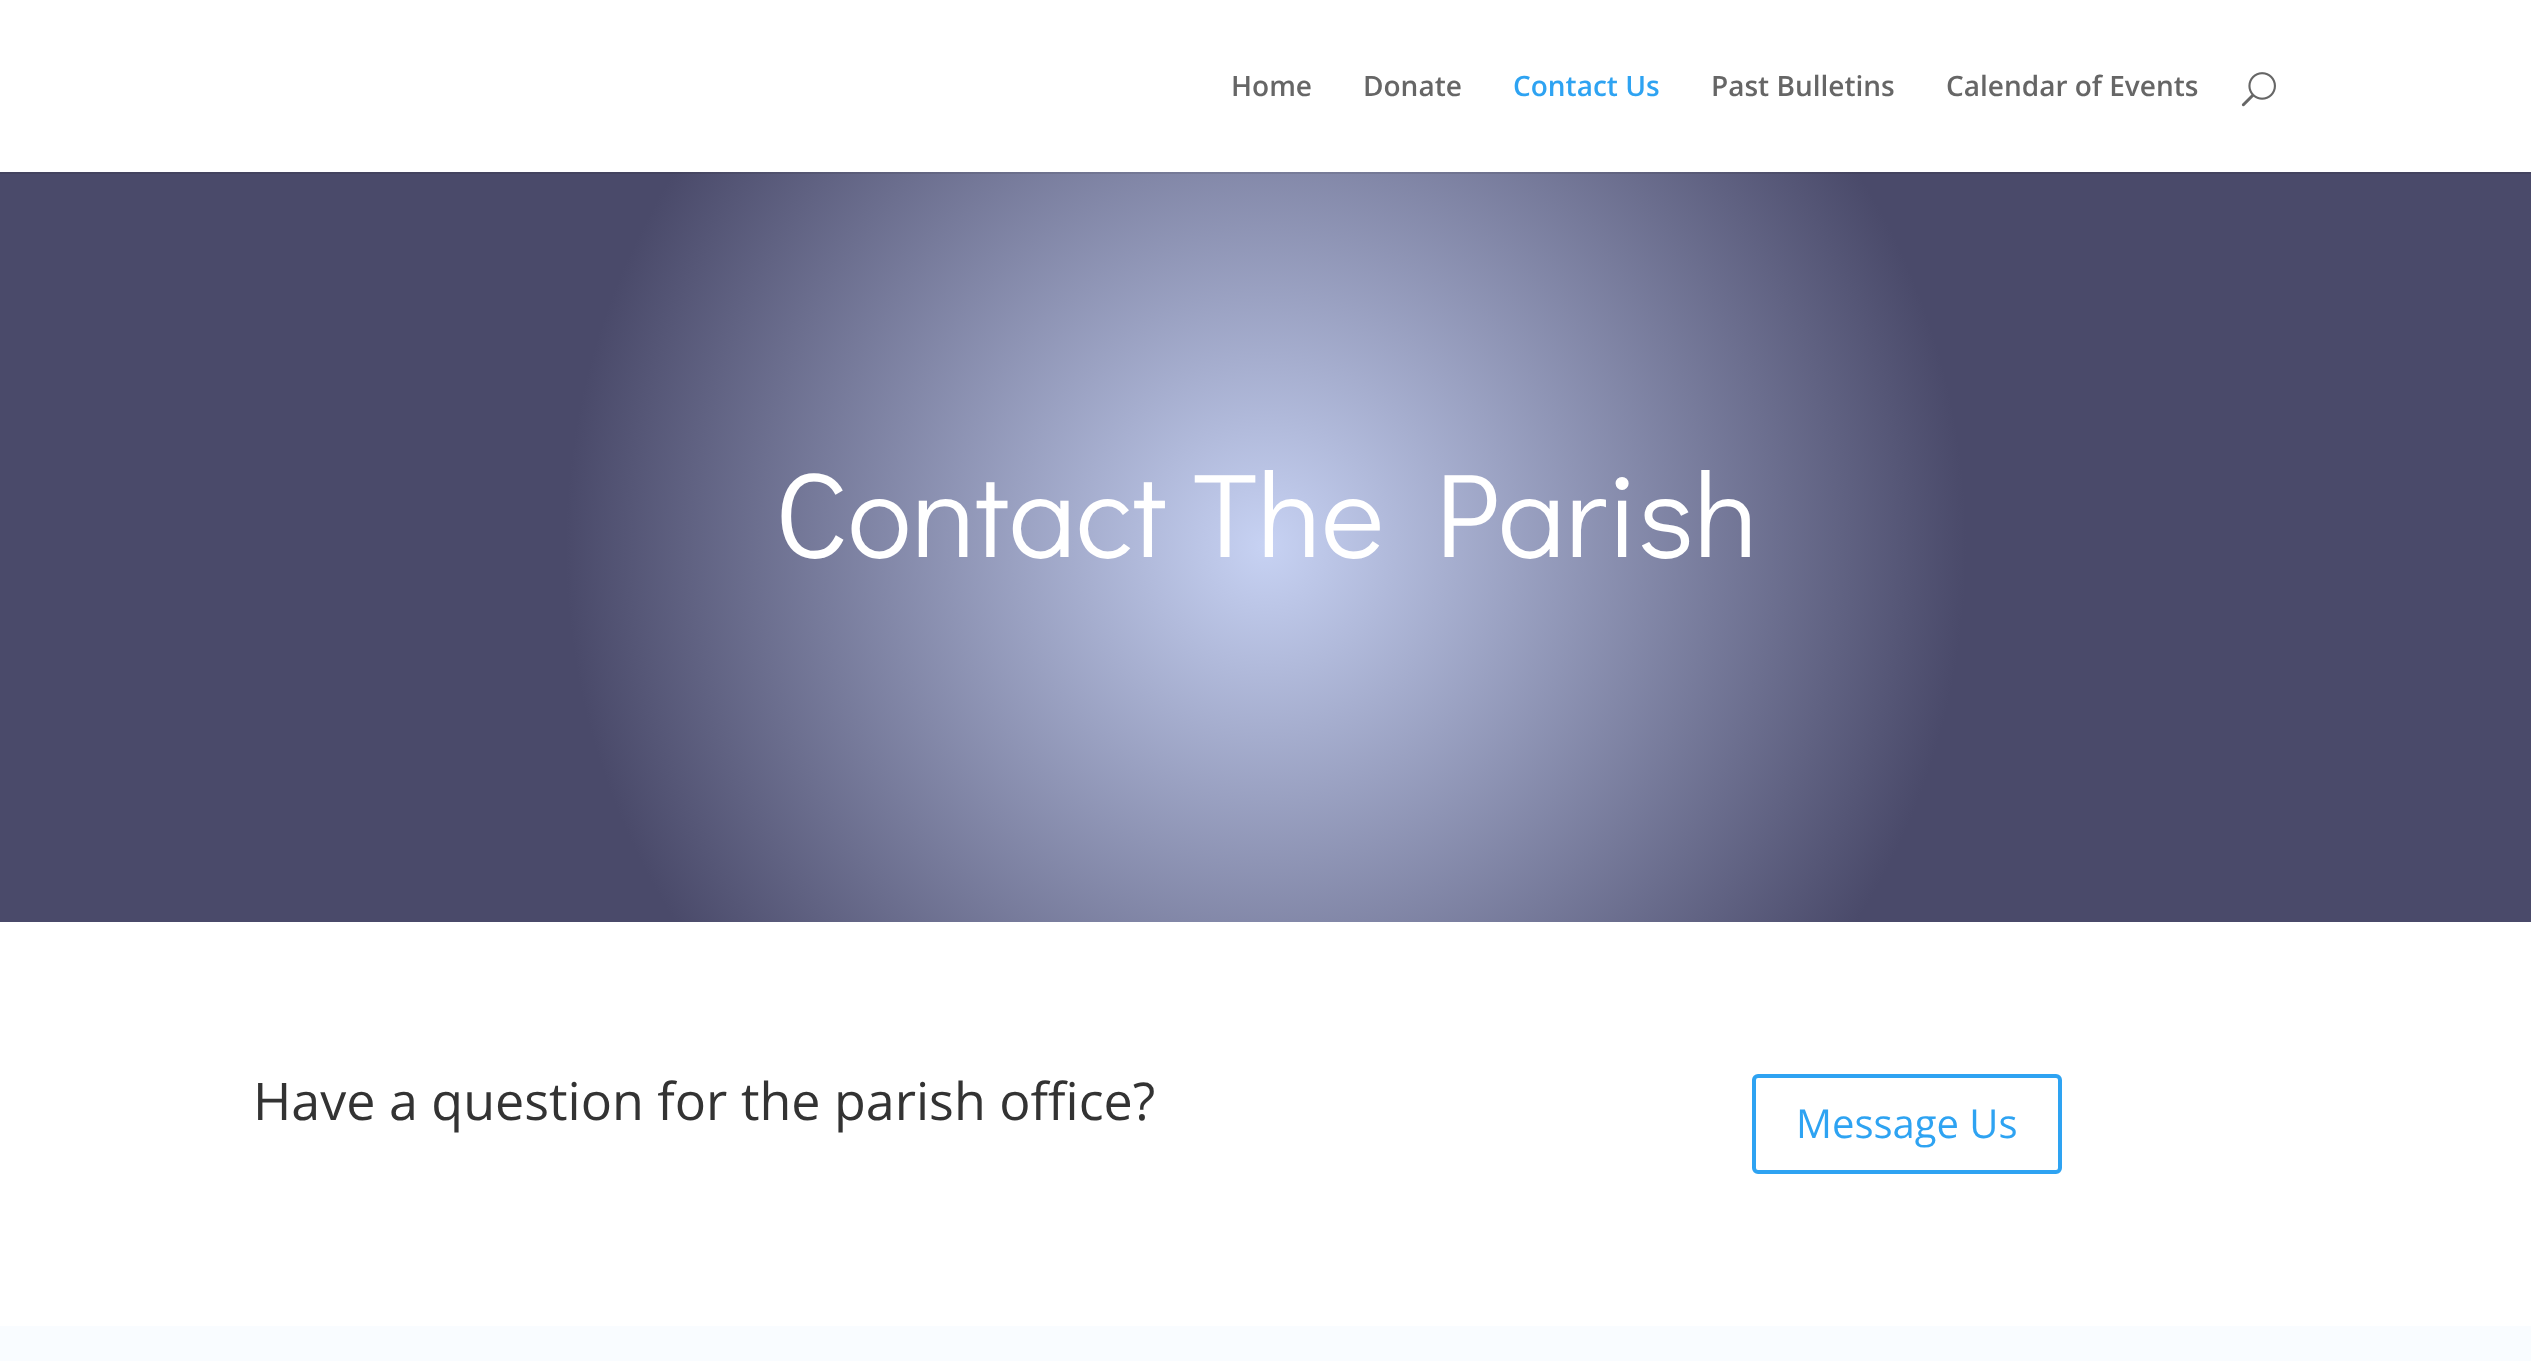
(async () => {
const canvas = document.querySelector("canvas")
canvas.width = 2531
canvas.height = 1361
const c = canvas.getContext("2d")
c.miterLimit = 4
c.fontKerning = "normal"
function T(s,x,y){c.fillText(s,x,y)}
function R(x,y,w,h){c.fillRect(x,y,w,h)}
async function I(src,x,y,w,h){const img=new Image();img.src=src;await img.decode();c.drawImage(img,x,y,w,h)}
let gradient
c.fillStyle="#fff"
R(0,0,2531,1361)
c.font="600 28px Open Sans"
c.fillStyle="#666"
T("Home",1231,96)
T("Donate",1363,96)
c.fillStyle="#2ea3f2"
T("Contact Us",1513,96)
c.fillStyle="#666"
T("Past Bulletins",1711,96)
T("Calendar of Events",1946,96)
await I("1.png",2241,72,35,35)
gradient = c.createRadialGradient(1266,546,0,1266,546,1321)
gradient.addColorStop(0,"#c7d2f3")
gradient.addColorStop(.53,"#4a4a6a")
c.fillStyle = gradient
R(0,174,2531,748)
gradient = c.createRadialGradient(1266,546,0,1266,546,1321)
gradient.addColorStop(0,"#b3bddb")
gradient.addColorStop(.53,"#43435f")
c.fillStyle = gradient
R(0,172,2531,2)
c.font="120px Didact Gothic"
c.fillStyle="#fff"
T("Contact The Parish",775,557)
c.font="52px Open Sans"
c.fillStyle="#333"
T("Have a question for the parish office?",253,1120)
c.beginPath()
c.roundRect(1754,1076,306,96,4)
c.strokeStyle="#2ea3f2"
c.lineWidth=4
c.stroke()
c.font="40px Open Sans"
c.fillStyle="#2ea3f2"
T("Message Us",1796,1138)
c.fillStyle="#f9fcff"
R(0,1326,2531,35)
})()
